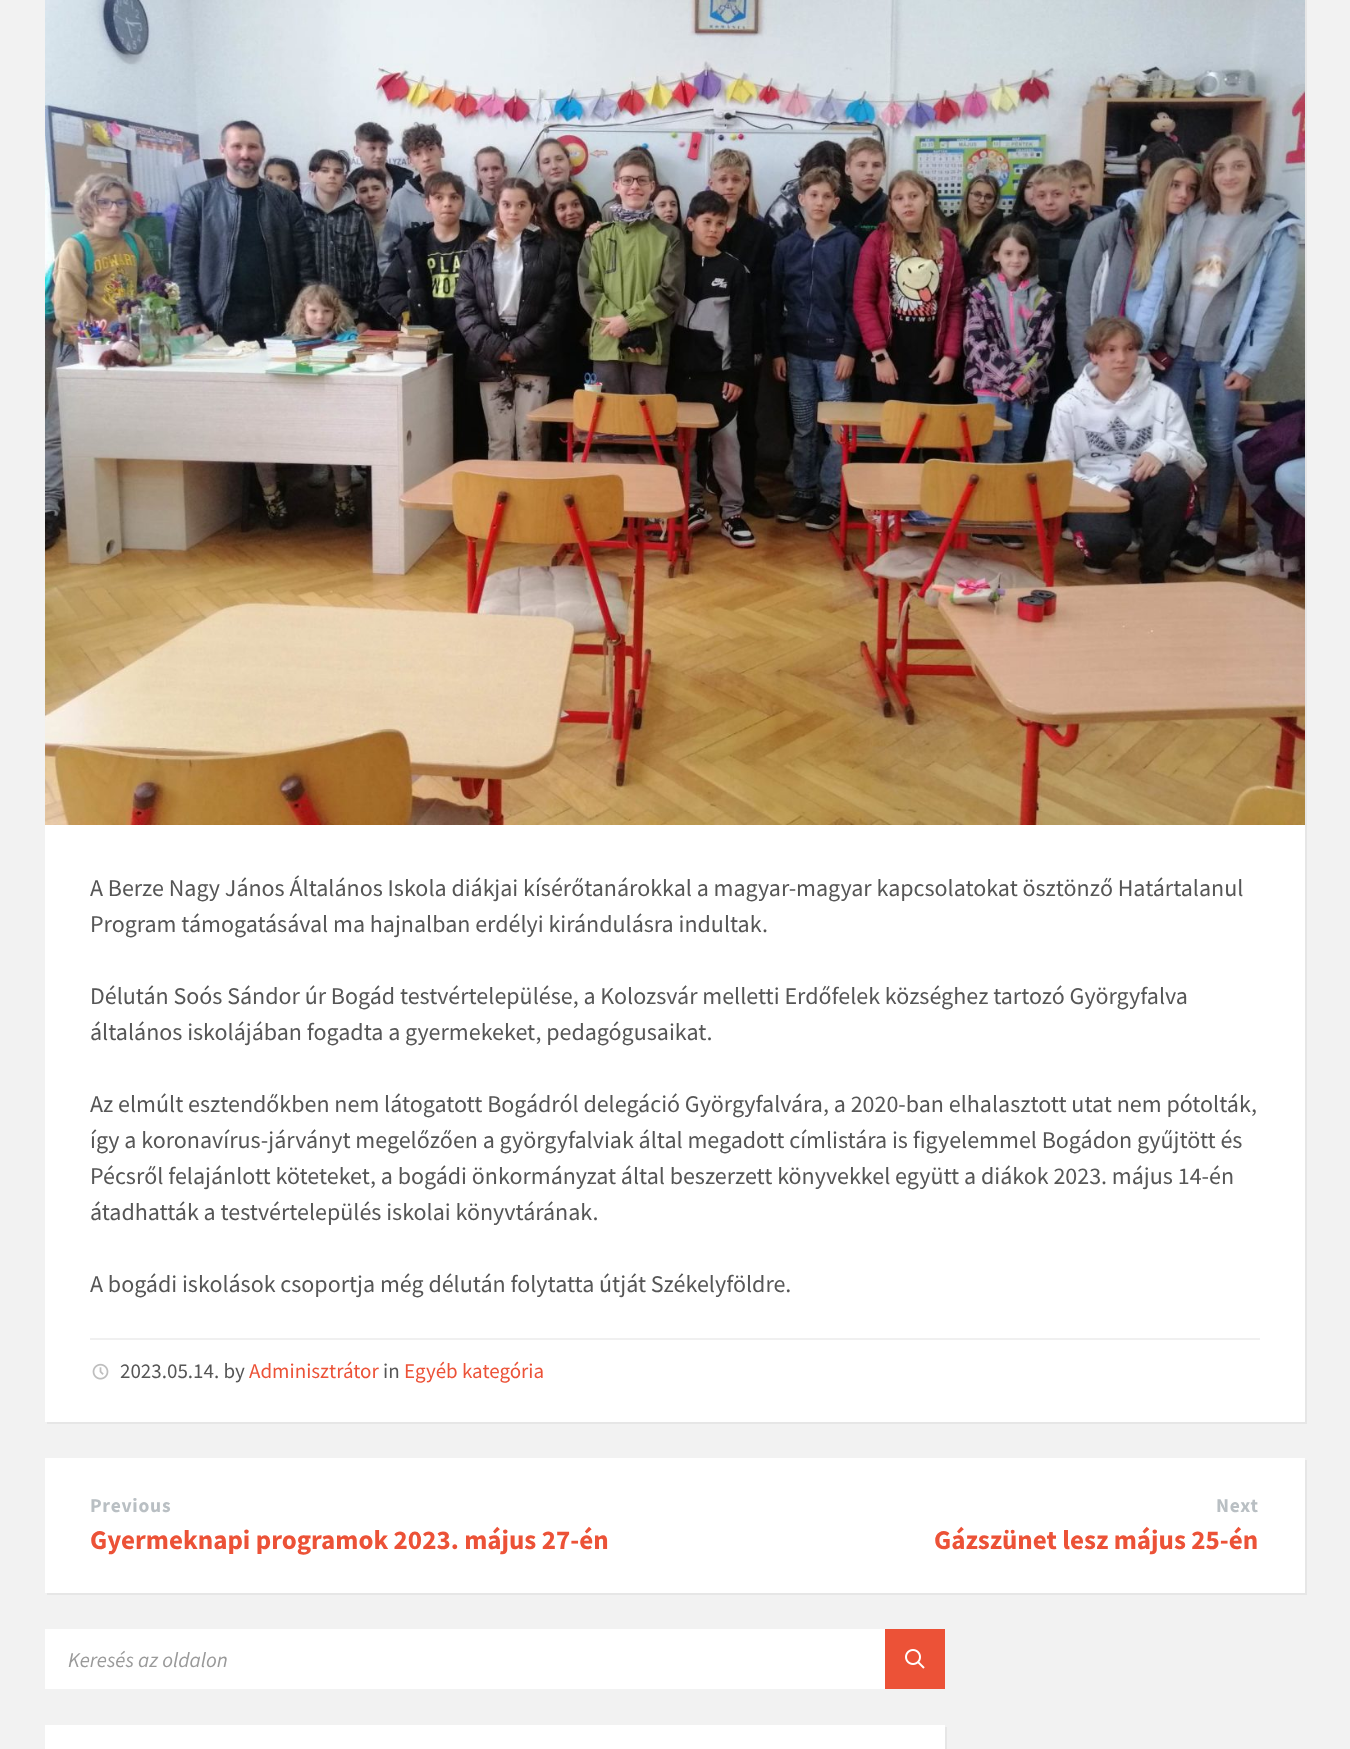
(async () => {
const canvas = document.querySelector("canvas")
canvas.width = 1350
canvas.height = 1749
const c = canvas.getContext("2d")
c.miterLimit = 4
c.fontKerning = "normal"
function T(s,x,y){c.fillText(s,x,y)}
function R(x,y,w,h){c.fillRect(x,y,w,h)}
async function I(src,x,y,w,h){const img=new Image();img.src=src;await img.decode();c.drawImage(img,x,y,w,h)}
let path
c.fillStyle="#f2f2f2"
R(0,0,1350,1749)
c.fillStyle="#e6e6e6"
path = new Path2D("M47 1422v2h1260v-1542h-2v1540z")
c.fill(path)
c.fillStyle="#fff"
R(45,825,1260,597)
await I("1.png",45,0,1260,825)
c.font="24px Source Sans Pro"
c.fillStyle="#565656"
T("A Berze Nagy János Általános Iskola diákjai kísérőtanárokkal a magyar-magyar kapcsolatokat ösztönző Határtalanul",90,896)
T("Program támogatásával ma hajnalban erdélyi kirándulásra indultak.",90,932)
T("Délután Soós Sándor úr Bogád testvértelepülése, a Kolozsvár melletti Erdőfelek községhez tartozó Györgyfalva",90,1004)
T("általános iskolájában fogadta a gyermekeket, pedagógusaikat.",90,1040)
T("Az elmúlt esztendőkben nem látogatott Bogádról delegáció Györgyfalvára, a 2020-ban elhalasztott utat nem pótolták,",90,1112)
T("így a koronavírus-járványt megelőzően a györgyfalviak által megadott címlistára is figyelemmel Bogádon gyűjtött és",90,1148)
T("Pécsről felajánlott köteteket, a bogádi önkormányzat által beszerzett könyvekkel együtt a diákok 2023. május 14-én",90,1184)
T("átadhatták a testvértelepülés iskolai könyvtárának.",90,1220)
T("A bogádi iskolások csoportja még délután folytatta útját Székelyföldre.",90,1292)
c.fillStyle="#f0f0f0"
R(90,1338,1170,2)
await I("2.png",92,1363,17,17)
c.font="21px Source Sans Pro"
c.fillStyle="#565656"
T("2023.05.14. by",120,1378)
c.fillStyle="#ec5237"
T("Adminisztrátor",249,1378)
c.fillStyle="#565656"
T("in",383,1378)
c.fillStyle="#ec5237"
T("Egyéb kategória",404,1378)
c.fillStyle="#e6e6e6"
path = new Path2D("M47 1593v2h1260v-135h-2v133z")
c.fill(path)
c.fillStyle="#fff"
R(45,1458,1260,135)
c.letterSpacing="0.75px"
c.font="bold 19.5px Source Sans Pro"
c.fillStyle="#b9bfc3"
T("Previous",90,1512)
c.letterSpacing="0px"
c.font="bold 27px Source Sans Pro"
c.fillStyle="#ec5237"
T("Gyermeknapi programok 2023. május 27-én",90,1549)
c.letterSpacing="0.75px"
c.font="bold 19.5px Source Sans Pro"
c.fillStyle="#b9bfc3"
T("Next",1216,1512)
c.letterSpacing="0px"
c.font="bold 27px Source Sans Pro"
c.fillStyle="#ec5237"
T("Gázszünet lesz május 25-én",934,1549)
c.fillStyle="#fff"
R(45,1629,840,60)
c.font="italic 21px Source Sans Pro"
c.fillStyle="#9a9a9a"
T("Keresés az oldalon",68,1667)
c.fillStyle="#ec5237"
R(885,1629,60,60)
await I("3.png",905,1649,20,20)
c.fillStyle="#e6e6e6"
path = new Path2D("M47 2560v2h900v-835h-2v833z")
c.fill(path)
c.fillStyle="#fff"
R(45,1725,900,24)
})()
